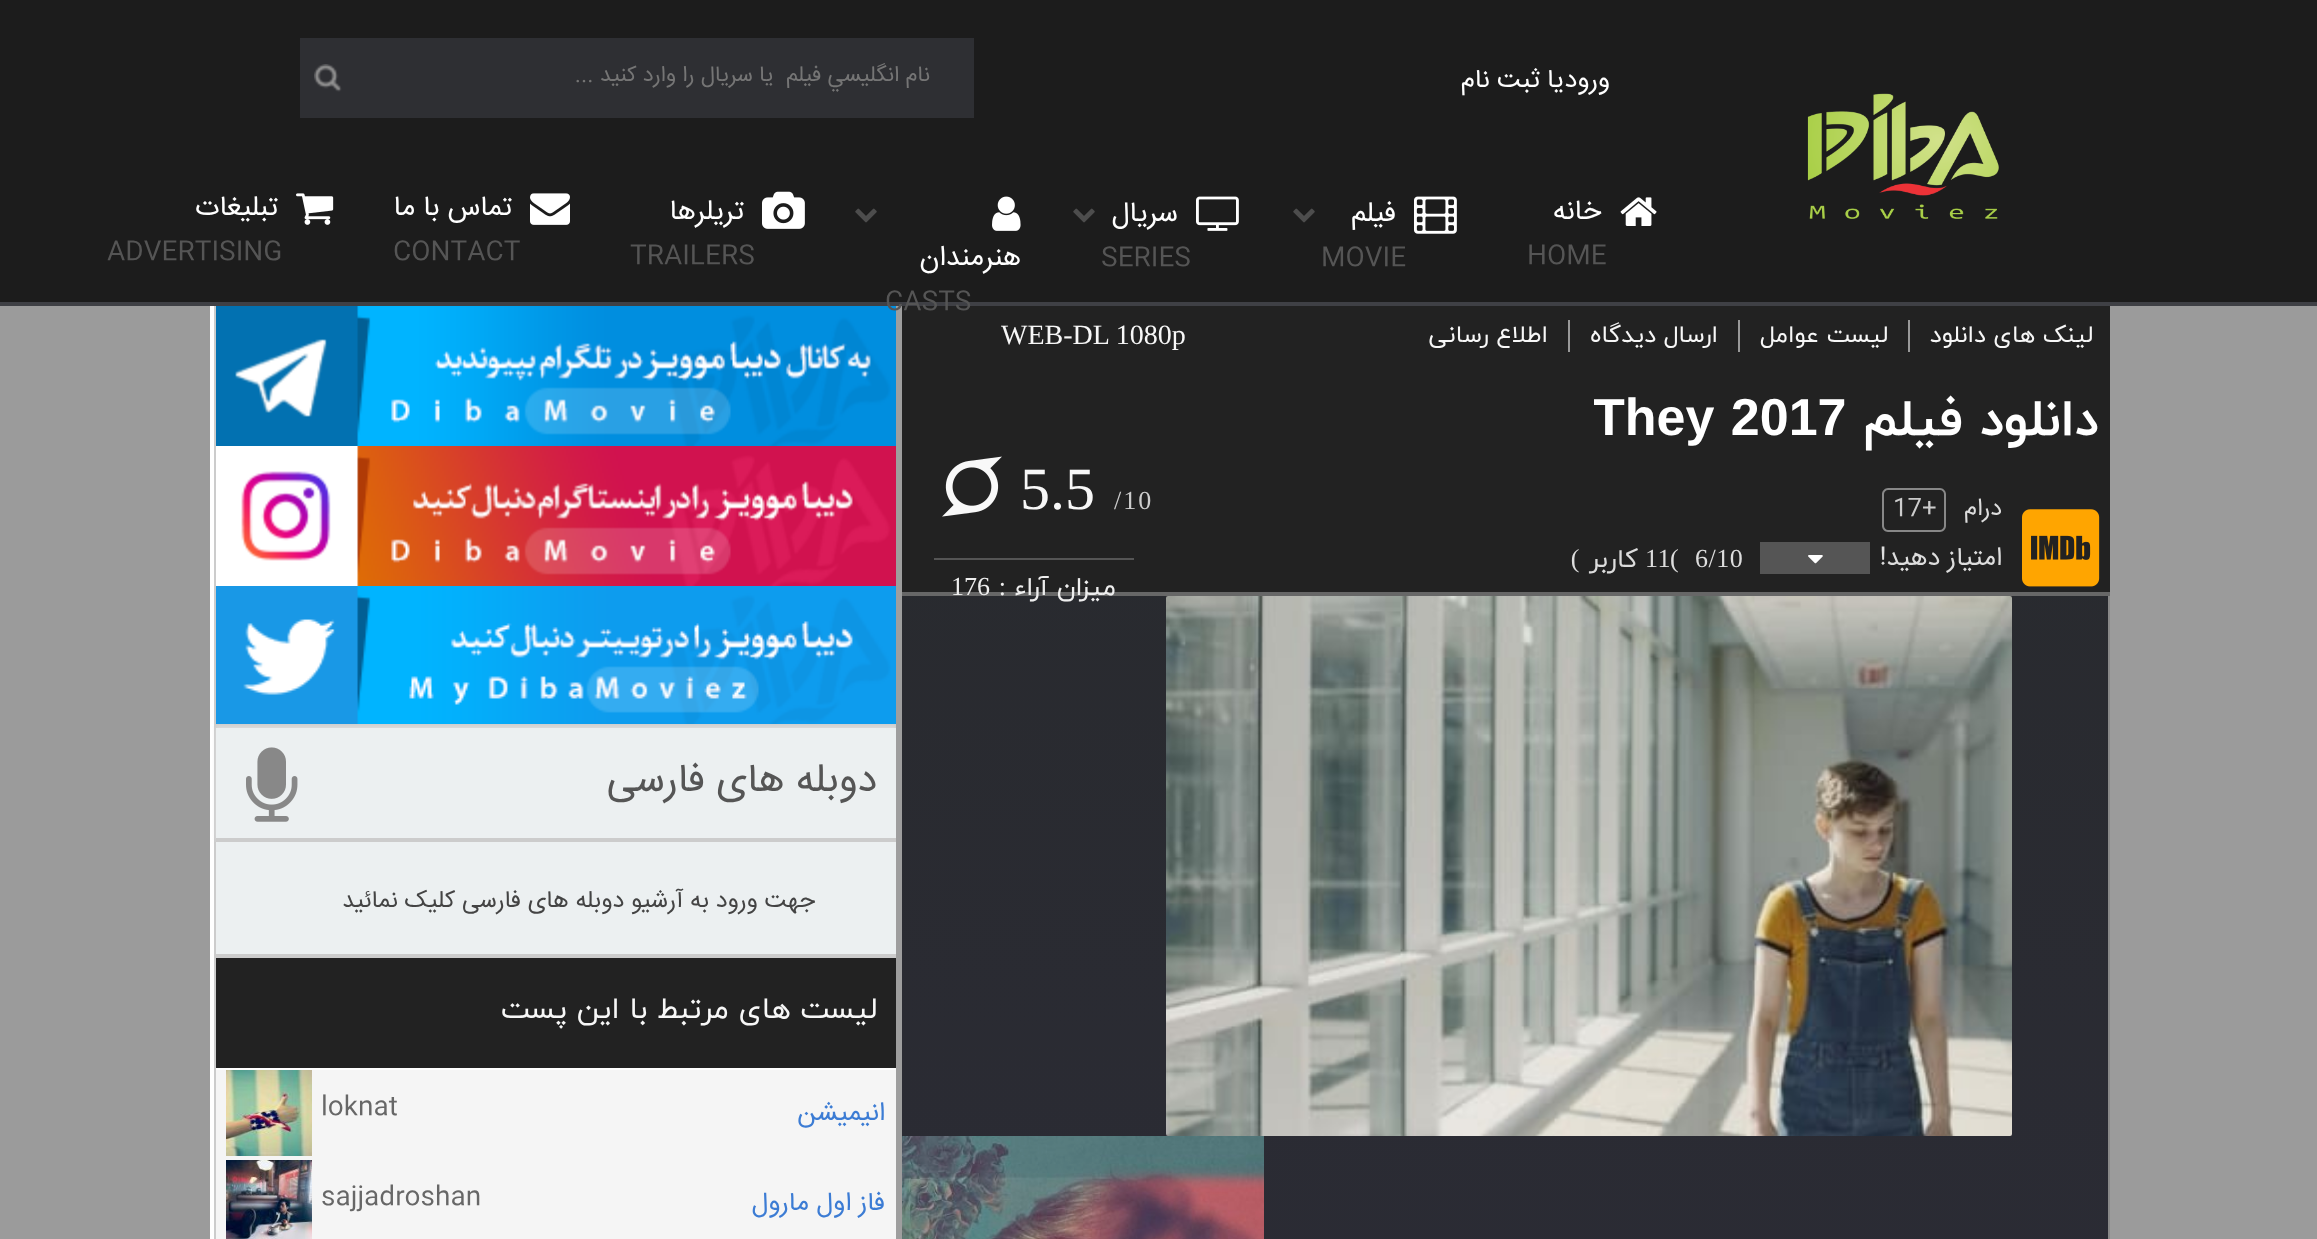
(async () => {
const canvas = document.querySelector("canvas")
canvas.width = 2317
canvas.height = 1239
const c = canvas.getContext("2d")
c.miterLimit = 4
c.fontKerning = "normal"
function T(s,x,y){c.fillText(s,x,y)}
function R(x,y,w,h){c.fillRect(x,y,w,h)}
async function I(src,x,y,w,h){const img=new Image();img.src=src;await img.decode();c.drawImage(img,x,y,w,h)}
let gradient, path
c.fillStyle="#9b9b9b"
R(0,0,2317,1239)
c.fillStyle="#1c1c1c"
R(0,0,2317,302)
c.fillStyle="#3f4045"
R(0,302,2317,4)
c.direction="rtl"
c.font="26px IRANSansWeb"
c.fillStyle="#fff"
T("ورود",1610,87)
T("يا",1564,87)
T("ثبت نام",1540,87)
c.fillStyle="#2e2f33"
R(300,38,674,80)
await I("1.png",314,64,28,28)
c.font="22px IRANSansWeb"
c.fillStyle="#757575"
T("نام انگليسي فيلم  يا سريال را وارد کنيد ...",930,81)
await I("2.png",1807,93,192,126)
await I("3.png",1620,197,37,29)
c.font="28px IRANSansWeb"
c.fillStyle="#fff"
T("خانه",1601,219)
c.direction="ltr"
c.font="26px IRANSansWeb"
c.fillStyle="#555"
T("HOME",1527,263)
await I("4.png",1414,196,43,38)
c.direction="rtl"
c.font="28px IRANSansWeb"
c.fillStyle="#fff"
T("فيلم",1396,221)
await I("5.png",1293,208,22,15)
c.direction="ltr"
c.font="26px IRANSansWeb"
c.fillStyle="#555"
T("MOVIE",1321,265)
await I("6.png",1196,196,43,35)
c.direction="rtl"
c.font="28px IRANSansWeb"
c.fillStyle="#fff"
T("سريال",1178,221)
await I("5.png",1073,208,22,15)
c.direction="ltr"
c.font="26px IRANSansWeb"
c.fillStyle="#555"
T("SERIES",1101,265)
await I("7.png",762,191,43,38)
c.direction="rtl"
c.font="28px IRANSansWeb"
c.fillStyle="#fff"
T("تريلرها",744,219)
c.direction="ltr"
c.font="26px IRANSansWeb"
c.fillStyle="#555"
T("TRAILERS",630,263)
await I("8.png",530,193,40,32)
c.direction="rtl"
c.font="28px IRANSansWeb"
c.fillStyle="#fff"
T("تماس با ما",512,215)
c.direction="ltr"
c.font="26px IRANSansWeb"
c.fillStyle="#555"
T("CONTACT",393,259)
await I("9.png",296,193,38,32)
c.direction="rtl"
c.font="28px IRANSansWeb"
c.fillStyle="#fff"
T("تبلیغات",278,215)
c.direction="ltr"
c.font="26px IRANSansWeb"
c.fillStyle="#555"
T("ADVERTISING",107,259)
await I("10.png",992,196,29,35)
await I("5.png",855,208,22,15)
c.direction="rtl"
c.font="28px IRANSansWeb"
c.fillStyle="#fff"
T("هنرمندان",1021,265)
R(210,306,686,933)
c.fillStyle="#222"
R(902,306,1208,286)
gradient = c.createLinearGradient(1506,306,1506,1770)
gradient.addColorStop(0,"#282a2d")
gradient.addColorStop(1,"#2c2c38")
c.fillStyle = gradient
R(902,596,1206,643)
c.fillStyle="#ccc"
R(214,306,2,933)
R(216,724,680,4)
c.fillStyle="#ddd"
c.filter="blur(2px)"
c.beginPath()
c.rect(216,726,680,114)
c.fill()
c.filter="none"
c.fillStyle="#9e9e9e"
R(896,306,6,933)
await I("16.png",216,306,680,140)
c.direction="ltr"
c.font="26px IRANSansWeb"
c.fillStyle="#555"
T("CASTS",885,309)
c.fillStyle="#676767"
R(902,592,1208,4)
c.direction="rtl"
c.font="24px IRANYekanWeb"
c.fillStyle="#f7f7f7"
T("لینک های دانلود",2093,342)
c.fillStyle="#999"
R(1908,320,2,32)
c.fillStyle="#f7f7f7"
T("لیست عوامل",1888,342)
c.fillStyle="#999"
R(1738,320,2,32)
c.fillStyle="#f7f7f7"
T("ارسال دیدگاه",1718,342)
c.fillStyle="#999"
R(1568,320,2,32)
c.fillStyle="#f7f7f7"
T("اطلاع رسانی",1548,342)
c.direction="ltr"
c.font="28px Liberation Serif"
T("WEB-DL 1080p",1001,344)
c.direction="rtl"
c.font="bold 52px IRANYekanWeb"
c.fillStyle="#fff"
T("دانلود فیلم",2099,435)
c.save()
c.beginPath()
c.rect(1594,388,506,72)
c.clip()
c.wordSpacing="2px"
c.direction="ltr"
c.font="bold 52px Liberation Sans"
T("They 2017",1593,435)
c.restore()
await I("11.png",2022,509,78,78)
c.font="24px IRANSansWeb"
c.fillStyle="#ddd"
T("درام",2002,515)
c.fillStyle="#888"
path = new Path2D("M1888 488h34v44h-34c-3 0-6-3-6-6v-32c0-3 3-6 6-6zm0 2h34v40h-34c-2 0-4-2-4-4v-32c0-2 2-4 4-4z")
c.fill(path,"evenodd")
path = new Path2D("M1922 488h18c3 0 6 3 6 6v32c0 3-3 6-6 6h-18zm0 2h18c2 0 4 2 4 4v32c0 2-2 4-4 4h-18z")
c.fill(path,"evenodd")
c.direction="ltr"
c.fillStyle="#ccc"
T("17+",1893,515)
c.letterSpacing="2px"
c.font="26px Liberation Serif"
T("/10",1114,509)
c.letterSpacing="0px"
c.font="60px Liberation Serif"
c.fillStyle="#f7f7f7"
T("5.5",1020,509)
await I("12.png",942,456,60,61)
c.direction="rtl"
c.font="26px IRANSansWeb"
c.fillStyle="#ddd"
T("امتیاز دهید!",2002,565)
c.fillStyle="#555"
R(1760,542,110,32)
await I("13.png",1808,555,15,9)
c.letterSpacing="0.5px"
c.direction="ltr"
c.font="26px Liberation Serif"
c.fillStyle="#ddd"
T("6/10",1695,567)
T("(",1670,567)
T("11",1645,567)
c.direction="rtl"
c.font="26px IRANYekanWeb"
T("کاربر",1638,567)
c.font="26px Liberation Serif"
T(")",1580,567)
c.fillStyle="#555"
R(934,558,200,2)
c.letterSpacing="0px"
c.font="26px IRANYekanWeb"
c.fillStyle="#eee"
T("میزان آراء",1116,595)
c.font="26px Liberation Serif"
T(":",1006,595)
c.direction="ltr"
T("176",951,595)
await I("14.png",1166,596,846,540)
await I("15.png",902,1136,362,103)
c.fillStyle="#898989"
R(2108,596,2,643)
await I("17.png",241,446,655,140)
await I("18.png",216,586,680,138)
c.fillStyle="#ecf0f1"
R(216,728,680,110)
c.fillStyle="#ccc"
R(216,838,680,4)
c.direction="rtl"
c.font="40px IRANSansWeb"
c.fillStyle="#555"
T("دوبله های فارسی",877,791)
await I("19.png",246,747,52,75)
c.fillStyle="#ecf0f1"
R(216,842,680,112)
c.font="24px IRANSansWeb"
c.fillStyle="#444"
T("جهت ورود به آرشیو دوبله های فارسی کلیک نمائید",815,907)
c.fillStyle="#ccc"
R(216,954,680,4)
c.fillStyle="#222"
R(216,958,680,110)
c.font="30px IRANYekanWeb"
c.fillStyle="#f7f7f7"
T("لیست های مرتبط با این پست",877,1018)
c.fillStyle="#f5f5f5"
R(216,1070,680,169)
c.font="26px IRANSansWeb"
c.fillStyle="#3c7cd4"
T("انيميشن",885,1120)
c.direction="ltr"
c.fillStyle="#676767"
T("loknat",321,1114)
await I("20.png",226,1070,86,86)
c.direction="rtl"
c.fillStyle="#3c7cd4"
T("فاز اول مارول",885,1210)
c.direction="ltr"
c.fillStyle="#676767"
T("sajjadroshan",321,1204)
await I("21.png",226,1160,86,79)
})()
